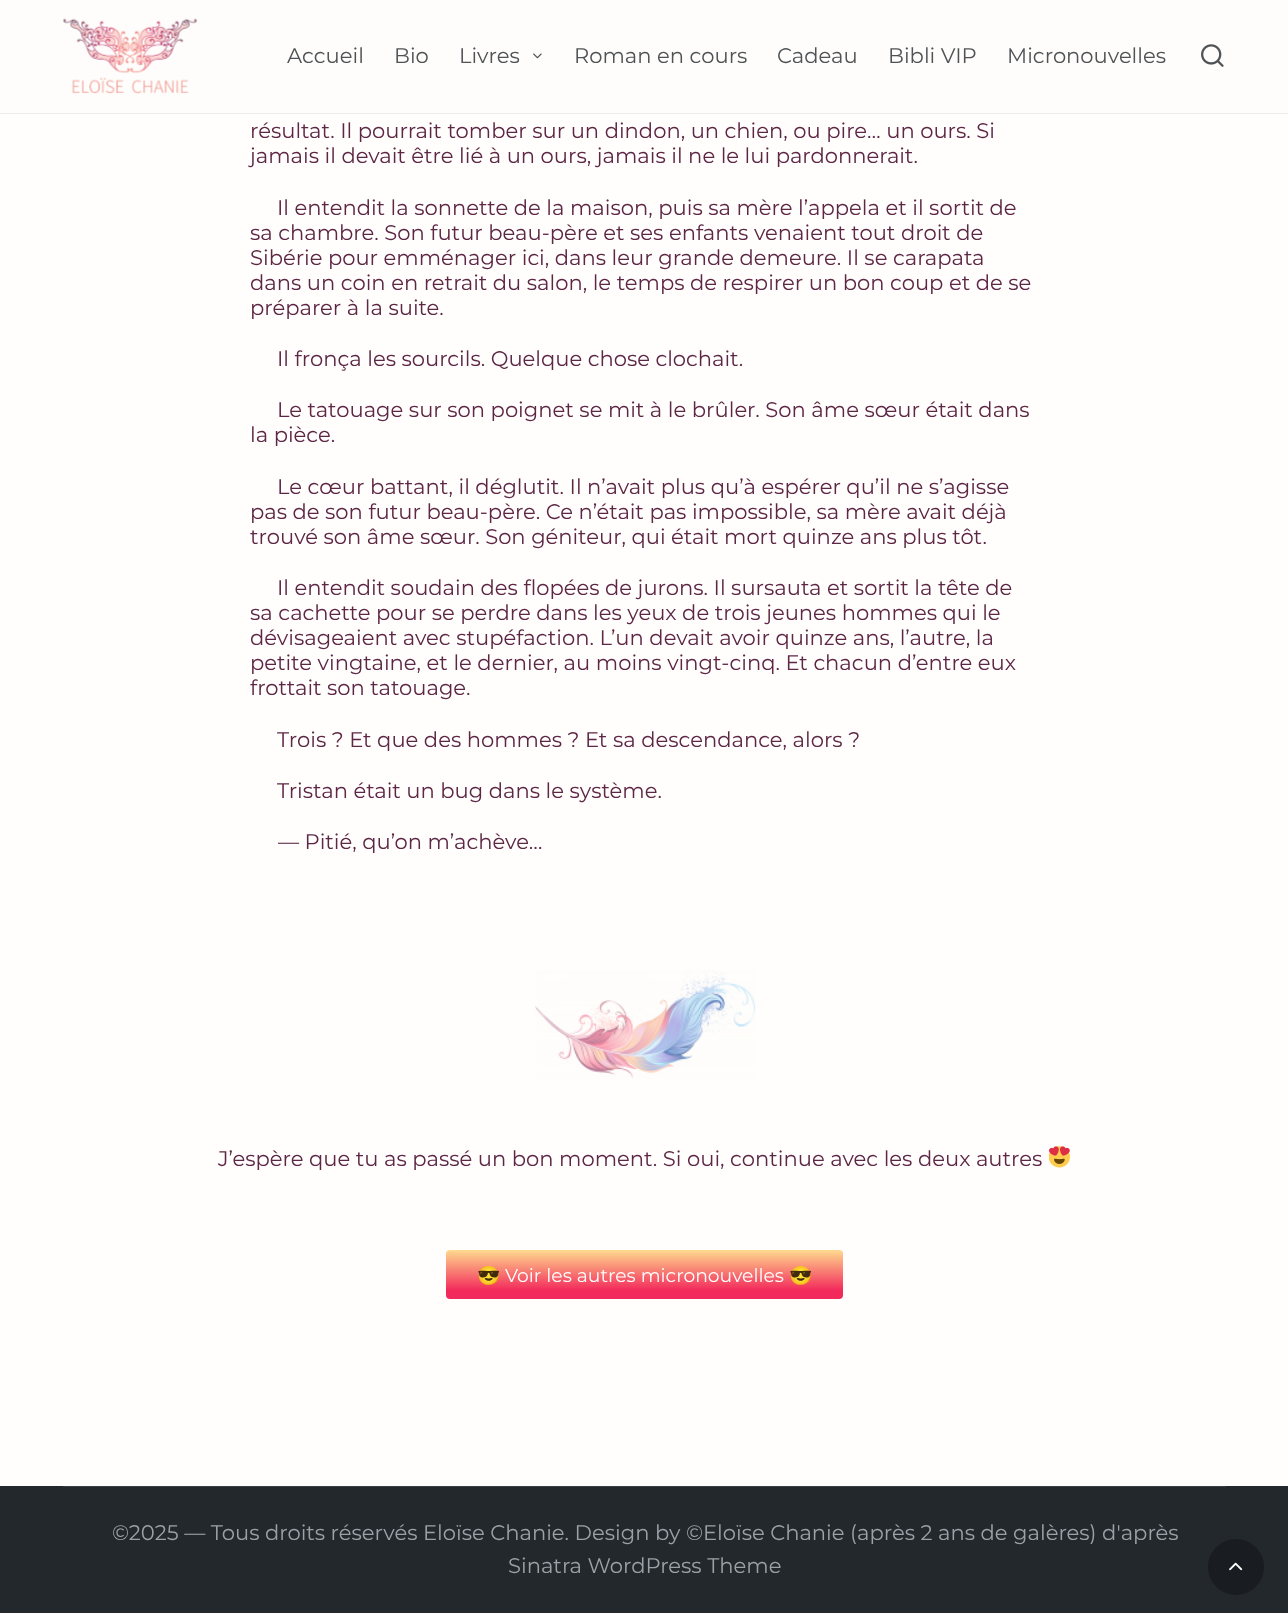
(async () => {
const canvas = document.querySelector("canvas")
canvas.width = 1288
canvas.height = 1613
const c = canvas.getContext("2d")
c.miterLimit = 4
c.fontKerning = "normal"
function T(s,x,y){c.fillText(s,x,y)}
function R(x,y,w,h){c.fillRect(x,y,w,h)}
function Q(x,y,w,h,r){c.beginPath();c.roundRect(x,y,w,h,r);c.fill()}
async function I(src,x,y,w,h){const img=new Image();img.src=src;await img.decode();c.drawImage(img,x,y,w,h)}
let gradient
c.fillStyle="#fffefc"
R(0,0,1288,1613)
c.fillStyle="#f7f5e7cc"
R(0,0,1288,113)
R(0,0,1288,113)
c.fillStyle="#ffffffcc"
R(0,0,1288,113)
c.fillStyle="#ecece9"
R(0,113,1288,1)
await I("1.png",63,18,134,76)
c.font="100 21.1px Montserrat"
c.fillStyle="#4f5356"
T("Accueil",287,63)
T("Bio",394,63)
T("Livres",459,63)
await I("2.png",533,53,9,6)
T("Roman en cours",574,63)
T("Cadeau",777,63)
T("Bibli VIP",888,63)
T("Micronouvelles",1007,63)
await I("3.png",1201,44,23,23)
c.fillStyle="#5d2644"
T("résultat. Il pourrait tomber sur un dindon, un chien, ou pire… un ours. Si",250,138)
T("jamais il devait être lié à un ours, jamais il ne le lui pardonnerait.",250,163)
T("Il entendit la sonnette de la maison, puis sa mère l’appela et il sortit de",277,215)
T("sa chambre. Son futur beau-père et ses enfants venaient tout droit de",250,240)
T("Sibérie pour emménager ici, dans leur grande demeure. Il se carapata",250,265)
T("dans un coin en retrait du salon, le temps de respirer un bon coup et de se",250,290)
T("préparer à la suite.",250,315)
T("Il fronça les sourcils. Quelque chose clochait.",277,366)
T("Le tatouage sur son poignet se mit à le brûler. Son âme sœur était dans",277,417)
T("la pièce.",250,442)
T("Le cœur battant, il déglutit. Il n’avait plus qu’à espérer qu’il ne s’agisse",277,494)
T("pas de son futur beau-père. Ce n’était pas impossible, sa mère avait déjà",250,519)
T("trouvé son âme sœur. Son géniteur, qui était mort quinze ans plus tôt.",250,544)
T("Il entendit soudain des flopées de jurons. Il sursauta et sortit la tête de",277,595)
T("sa cachette pour se perdre dans les yeux de trois jeunes hommes qui le",250,620)
T("dévisageaient avec stupéfaction. L’un devait avoir quinze ans, l’autre, la",250,645)
T("petite vingtaine, et le dernier, au moins vingt-cinq. Et chacun d’entre eux",250,670)
T("frottait son tatouage.",250,695)
T("Trois ? Et que des hommes ? Et sa descendance, alors ?",277,747)
T("Tristan était un bug dans le système.",277,798)
T("— Pitié, qu’on m’achève…",278,849)
await I("4.png",535,970,221,109)
T("J’espère que tu as passé un bon moment. Si oui, continue avec les deux autres",218,1166)
await I("5.png",1049,1146,21,22)
gradient = c.createLinearGradient(644,1299,644,1250)
gradient.addColorStop(.17,"#f2295b")
gradient.addColorStop(1,"#ffda8e")
c.fillStyle = gradient
Q(446,1250,397,49,4)
c.font="18.75px Noto Color Emoji"
c.fillStyle="#fff"
T("😎",477,1282)
c.font="100 18.75px Montserrat"
T("Voir les autres micronouvelles",505,1282)
c.font="18.75px Noto Color Emoji"
T("😎",789,1282)
c.fillStyle="#23282d"
R(0,1486,1288,127)
c.fillStyle="#393e42"
R(63,1486,1163,1)
c.font="100 21.1px Montserrat"
c.fillStyle="#9ba1a7"
T("©2025 — Tous droits réservés Eloïse Chanie. Design by ©Eloïse Chanie (après 2 ans de galères) d'après",112,1540)
T("Sinatra WordPress Theme",508,1573)
c.fillStyle="#191c20"
c.beginPath()
c.arc(1236,1567,28,0,7)
c.fill()
await I("6.png",1229,1562,14,9)
})()
